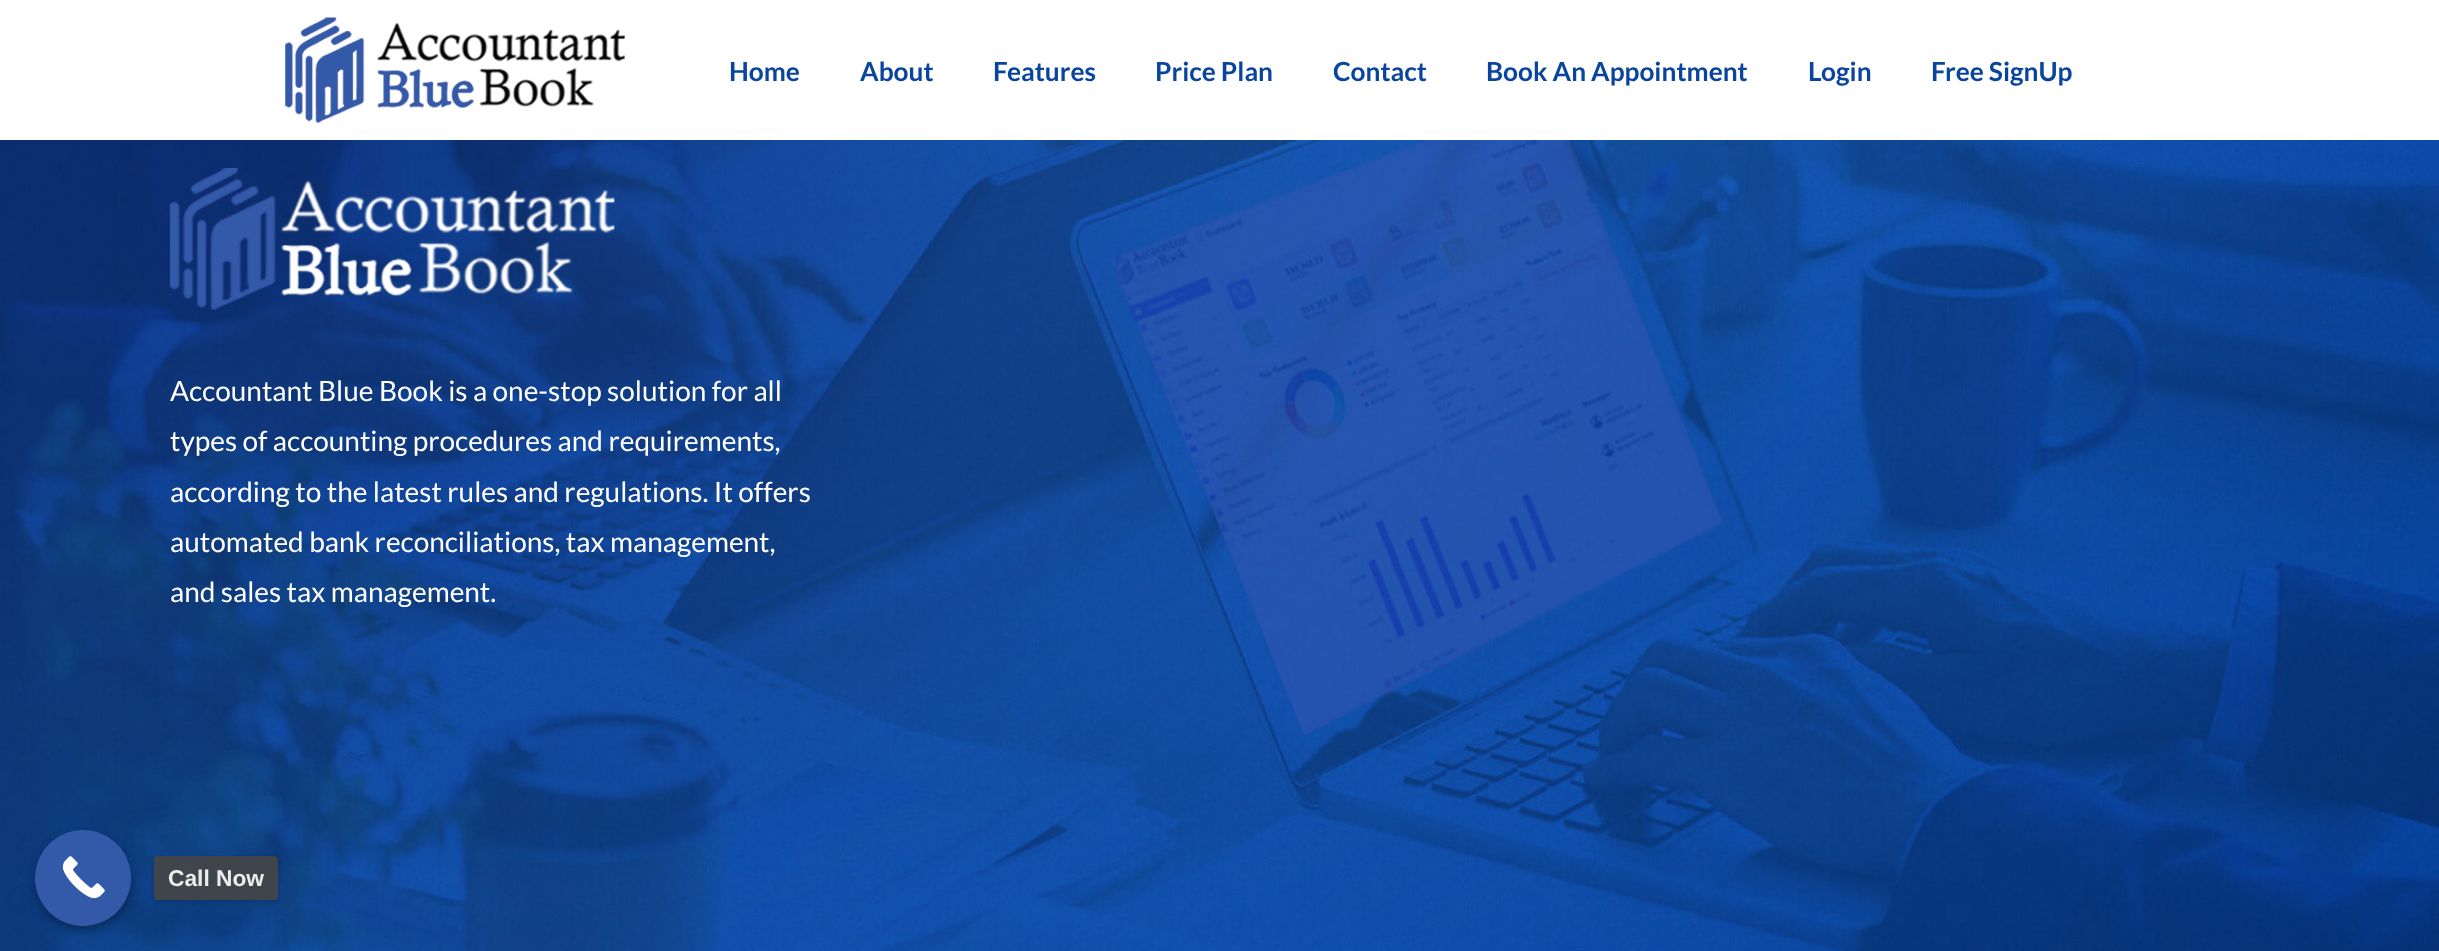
(async () => {
const canvas = document.querySelector("canvas")
canvas.width = 2439
canvas.height = 951
const c = canvas.getContext("2d")
c.miterLimit = 4
c.fontKerning = "normal"
function T(s,x,y){c.fillText(s,x,y)}
function R(x,y,w,h){c.fillRect(x,y,w,h)}
function Q(x,y,w,h,r){c.beginPath();c.roundRect(x,y,w,h,r);c.fill()}
async function I(src,x,y,w,h){const img=new Image();img.src=src;await img.decode();c.drawImage(img,x,y,w,h)}
let path
c.fillStyle="#fff"
R(0,0,2439,951)
await I("1.png",285,17,340,106)
c.font="bold 26.25px Lato"
c.fillStyle="#09449f"
T("Home",729,81)
T("About",860,81)
T("Features",993,81)
T("Price Plan",1155,81)
T("Contact",1333,81)
T("Book An Appointment",1486,81)
T("Login",1808,81)
T("Free SignUp",1931,81)
await I("2.png",0,140,2439,811)
await I("3.png",169,168,446,142)
c.font="28px Lato"
c.fillStyle="#fff"
T("Accountant Blue Book is a one-stop solution for all",170,401)
T("types of accounting procedures and requirements,",170,451)
T("according to the latest rules and regulations. It offers",170,502)
T("automated bank reconciliations, tax management,",170,552)
T("and sales tax management.",170,602)
c.fillStyle="#0000004d"
c.filter="blur(5px)"
c.beginPath()
c.roundRect(35,835,96,96,48)
c.fill()
c.filter="none"
c.fillStyle="#325aa9"
c.beginPath()
c.arc(83,878,48,0,7)
c.fill()
await I("4.png",62,856,43,43)
c.save()
path = new Path2D("M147 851h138v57h-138zm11 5h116c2 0 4 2 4 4v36c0 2-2 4-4 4h-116c-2 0-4-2-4-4v-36c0-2 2-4 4-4z")
c.clip(path,"evenodd")
c.fillStyle="#00000026"
c.filter="blur(2px)"
c.beginPath()
c.roundRect(154,858,124,43,4)
c.fill()
c.filter="none"
c.restore()
c.fillStyle="#464646e6"
Q(154,856,124,44,4)
c.font="bold 22.75px Liberation Sans"
c.fillStyle="#ececec"
T("Call Now",168,886)
})()
